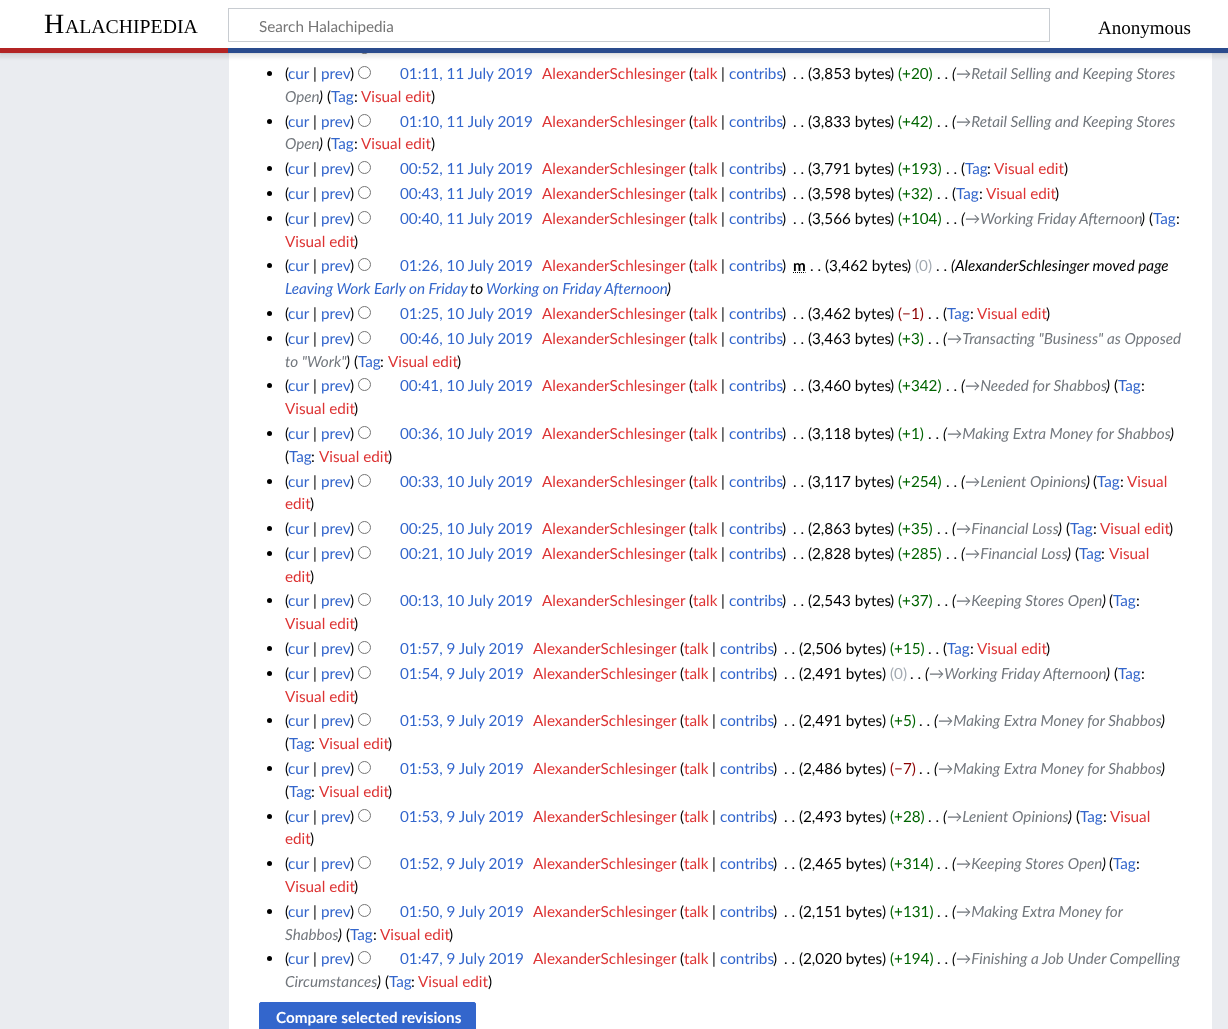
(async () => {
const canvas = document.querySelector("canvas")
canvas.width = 1228
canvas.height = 1029
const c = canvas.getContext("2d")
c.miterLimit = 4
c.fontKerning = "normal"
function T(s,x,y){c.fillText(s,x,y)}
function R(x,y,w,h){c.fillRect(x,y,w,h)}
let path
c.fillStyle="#eaecf0"
R(0,0,1228,1029)
c.fillStyle="#fff"
R(229,53,983,976)
c.beginPath()
c.arc(364.5,47.5,6,0,7)
c.strokeStyle="#767676"
c.stroke()
c.fillStyle="#00000033"
c.filter="blur(1px)"
c.beginPath()
c.rect(0,48,1228,5)
c.fill()
c.filter="none"
c.fillStyle="#00000012"
c.filter="blur(1.5px)"
c.beginPath()
c.rect(-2,49,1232,9)
c.fill()
c.filter="none"
c.fillStyle="#fff"
R(0,0,1228,48)
c.font="28px Liberation Serif"
c.fillStyle="#000"
T("H",44,33)
c.font="19.75px Liberation Serif"
T("ALACHIPEDIA",65,33)
c.strokeStyle="#c8ccd1"
c.strokeRect(228.5,8.5,821,33)
c.font="15.25px Lato"
c.fillStyle="#757575"
T("Search Halachipedia",259,32)
c.font="19px Liberation Serif"
c.fillStyle="#000"
T("Anonymous",1098,34)
c.fillStyle="#b32424"
R(0,48,228,5)
c.fillStyle="#2a4b8d"
R(228,48,1000,5)
c.fillStyle="#000"
c.beginPath()
c.arc(269.5,73.5,2.5,0,7)
c.fill()
c.font="15.25px Lato"
T("(",285,79)
c.fillStyle="#36c"
T("cur",288,79)
c.fillStyle="#000"
T("|",313,79)
c.fillStyle="#36c"
T("prev",321,79)
c.fillStyle="#000"
T(")",350,79)
c.beginPath()
c.arc(364.5,72.5,6,0,7)
c.strokeStyle="#767676"
c.stroke()
c.fillStyle="#36c"
T("01:11, 11 July 2019",400,79)
c.fillStyle="#d33"
T("AlexanderSchlesinger",542,79)
c.fillStyle="#000"
T("(",689,79)
c.fillStyle="#d33"
T("talk",693,79)
c.fillStyle="#000"
T("|",721,79)
c.fillStyle="#36c"
T("contribs",729,79)
c.fillStyle="#000"
T(")",782,79)
T(". . (",793,79)
T("3,853 bytes",812,79)
T(")",890,79)
c.fillStyle="#006400"
T("(+20)",898,79)
c.font="italic 15.25px Lato"
c.fillStyle="#000"
T("(",952,79)
c.fillStyle="#72777d"
T("→Retail Selling and Keeping Stores",956,79)
c.font="15.25px Lato"
c.fillStyle="#000"
T(". .",937,79)
c.font="italic 15.25px Lato"
c.fillStyle="#72777d"
T("Open",285,102)
c.fillStyle="#000"
T(")",319,102)
c.font="15.25px Lato"
T("(",327,102)
c.fillStyle="#36c"
T("Tag",331,102)
c.fillStyle="#000"
T(":",354,102)
c.fillStyle="#d33"
T("Visual edit",361,102)
c.fillStyle="#000"
T(")",431,102)
c.beginPath()
c.arc(269.5,121.5,2.5,0,7)
c.fill()
T("(",285,127)
c.fillStyle="#36c"
T("cur",288,127)
c.fillStyle="#000"
T("|",313,127)
c.fillStyle="#36c"
T("prev",321,127)
c.fillStyle="#000"
T(")",350,127)
c.beginPath()
c.arc(364.5,120.5,6,0,7)
c.stroke()
c.fillStyle="#36c"
T("01:10, 11 July 2019",400,127)
c.fillStyle="#d33"
T("AlexanderSchlesinger",542,127)
c.fillStyle="#000"
T("(",689,127)
c.fillStyle="#d33"
T("talk",693,127)
c.fillStyle="#000"
T("|",721,127)
c.fillStyle="#36c"
T("contribs",729,127)
c.fillStyle="#000"
T(")",782,127)
T(". . (",793,127)
T("3,833 bytes",812,127)
T(")",890,127)
c.fillStyle="#006400"
T("(+42)",898,127)
c.font="italic 15.25px Lato"
c.fillStyle="#000"
T("(",952,127)
c.fillStyle="#72777d"
T("→Retail Selling and Keeping Stores",956,127)
c.font="15.25px Lato"
c.fillStyle="#000"
T(". .",937,127)
c.font="italic 15.25px Lato"
c.fillStyle="#72777d"
T("Open",285,149)
c.fillStyle="#000"
T(")",319,149)
c.font="15.25px Lato"
T("(",327,149)
c.fillStyle="#36c"
T("Tag",331,149)
c.fillStyle="#000"
T(":",354,149)
c.fillStyle="#d33"
T("Visual edit",361,149)
c.fillStyle="#000"
T(")",431,149)
c.beginPath()
c.arc(269.5,168.5,2.5,0,7)
c.fill()
T("(",285,174)
c.fillStyle="#36c"
T("cur",288,174)
c.fillStyle="#000"
T("|",313,174)
c.fillStyle="#36c"
T("prev",321,174)
c.fillStyle="#000"
T(")",350,174)
c.beginPath()
c.arc(364.5,167.5,6,0,7)
c.stroke()
c.fillStyle="#36c"
T("00:52, 11 July 2019",400,174)
c.fillStyle="#d33"
T("AlexanderSchlesinger",542,174)
c.fillStyle="#000"
T("(",689,174)
c.fillStyle="#d33"
T("talk",693,174)
c.fillStyle="#000"
T("|",721,174)
c.fillStyle="#36c"
T("contribs",729,174)
c.fillStyle="#000"
T(")",782,174)
T(". . (",793,174)
T("3,791 bytes",812,174)
T(")",890,174)
c.fillStyle="#006400"
T("(+193)",898,174)
c.fillStyle="#000"
T(". . (",946,174)
c.fillStyle="#36c"
T("Tag",965,174)
c.fillStyle="#000"
T(":",987,174)
c.fillStyle="#d33"
T("Visual edit",994,174)
c.fillStyle="#000"
T(")",1064,174)
c.beginPath()
c.arc(269.5,193.5,2.5,0,7)
c.fill()
T("(",285,199)
c.fillStyle="#36c"
T("cur",288,199)
c.fillStyle="#000"
T("|",313,199)
c.fillStyle="#36c"
T("prev",321,199)
c.fillStyle="#000"
T(")",350,199)
c.beginPath()
c.arc(364.5,192.5,6,0,7)
c.stroke()
c.fillStyle="#36c"
T("00:43, 11 July 2019",400,199)
c.fillStyle="#d33"
T("AlexanderSchlesinger",542,199)
c.fillStyle="#000"
T("(",689,199)
c.fillStyle="#d33"
T("talk",693,199)
c.fillStyle="#000"
T("|",721,199)
c.fillStyle="#36c"
T("contribs",729,199)
c.fillStyle="#000"
T(")",782,199)
T(". . (",793,199)
T("3,598 bytes",812,199)
T(")",890,199)
c.fillStyle="#006400"
T("(+32)",898,199)
c.fillStyle="#000"
T(". . (",937,199)
c.fillStyle="#36c"
T("Tag",956,199)
c.fillStyle="#000"
T(":",979,199)
c.fillStyle="#d33"
T("Visual edit",986,199)
c.fillStyle="#000"
T(")",1055,199)
c.beginPath()
c.arc(269.5,218.5,2.5,0,7)
c.fill()
T("(",285,224)
c.fillStyle="#36c"
T("cur",288,224)
c.fillStyle="#000"
T("|",313,224)
c.fillStyle="#36c"
T("prev",321,224)
c.fillStyle="#000"
T(")",350,224)
c.beginPath()
c.arc(364.5,217.5,6,0,7)
c.stroke()
c.fillStyle="#36c"
T("00:40, 11 July 2019",400,224)
c.fillStyle="#d33"
T("AlexanderSchlesinger",542,224)
c.fillStyle="#000"
T("(",689,224)
c.fillStyle="#d33"
T("talk",693,224)
c.fillStyle="#000"
T("|",721,224)
c.fillStyle="#36c"
T("contribs",729,224)
c.fillStyle="#000"
T(")",782,224)
T(". . (",793,224)
T("3,566 bytes",812,224)
T(")",890,224)
c.fillStyle="#006400"
T("(+104)",898,224)
c.fillStyle="#000"
T(". .",946,224)
c.font="italic 15.25px Lato"
T("(",961,224)
c.fillStyle="#72777d"
T("→Working Friday Afternoon",965,224)
c.fillStyle="#000"
T(")",1141,224)
c.font="15.25px Lato"
T("(",1149,224)
c.fillStyle="#36c"
T("Tag",1153,224)
c.fillStyle="#000"
T(":",1176,224)
c.fillStyle="#d33"
T("Visual edit",285,247)
c.fillStyle="#000"
T(")",354,247)
c.beginPath()
c.arc(269.5,265.5,2.5,0,7)
c.fill()
T("(",285,271)
c.fillStyle="#36c"
T("cur",288,271)
c.fillStyle="#000"
T("|",313,271)
c.fillStyle="#36c"
T("prev",321,271)
c.fillStyle="#000"
T(")",350,271)
c.beginPath()
c.arc(364.5,264.5,6,0,7)
c.stroke()
c.fillStyle="#36c"
T("01:26, 10 July 2019",400,271)
c.fillStyle="#d33"
T("AlexanderSchlesinger",542,271)
c.fillStyle="#000"
T("(",689,271)
c.fillStyle="#d33"
T("talk",693,271)
c.fillStyle="#000"
T("|",721,271)
c.fillStyle="#36c"
T("contribs",729,271)
c.fillStyle="#000"
T(")",782,271)
c.font="bold 15.25px Lato"
T("m",793,271)
path = new Path2D("M793 272.5h12.5")
c.strokeStyle="#000"
c.setLineDash([1,1])
c.stroke(path)
c.font="15.25px Lato"
T(". . (",810,271)
T("3,462 bytes",829,271)
T(")",907,271)
c.fillStyle="#a2a9b1"
T("(0)",915,271)
c.fillStyle="#000"
T(". .",936,271)
c.font="italic 15.25px Lato"
T("(AlexanderSchlesinger moved page",951,271)
c.fillStyle="#36c"
T("Leaving Work Early on Friday",285,294)
c.fillStyle="#000"
T("to",470,294)
c.fillStyle="#36c"
T("Working on Friday Afternoon",486,294)
c.fillStyle="#000"
T(")",667,294)
c.beginPath()
c.arc(269.5,313.5,2.5,0,7)
c.fill()
c.font="15.25px Lato"
T("(",285,319)
c.fillStyle="#36c"
T("cur",288,319)
c.fillStyle="#000"
T("|",313,319)
c.fillStyle="#36c"
T("prev",321,319)
c.fillStyle="#000"
T(")",350,319)
c.beginPath()
c.arc(364.5,312.5,6,0,7)
c.strokeStyle="#767676"
c.setLineDash([])
c.stroke()
c.fillStyle="#36c"
T("01:25, 10 July 2019",400,319)
c.fillStyle="#d33"
T("AlexanderSchlesinger",542,319)
c.fillStyle="#000"
T("(",689,319)
c.fillStyle="#d33"
T("talk",693,319)
c.fillStyle="#000"
T("|",721,319)
c.fillStyle="#36c"
T("contribs",729,319)
c.fillStyle="#000"
T(")",782,319)
T(". . (",793,319)
T("3,462 bytes",812,319)
T(")",890,319)
c.fillStyle="#8b0000"
T("(−1)",898,319)
c.fillStyle="#000"
T(". . (",928,319)
c.fillStyle="#36c"
T("Tag",947,319)
c.fillStyle="#000"
T(":",970,319)
c.fillStyle="#d33"
T("Visual edit",977,319)
c.fillStyle="#000"
T(")",1046,319)
c.beginPath()
c.arc(269.5,338.5,2.5,0,7)
c.fill()
T("(",285,344)
c.fillStyle="#36c"
T("cur",288,344)
c.fillStyle="#000"
T("|",313,344)
c.fillStyle="#36c"
T("prev",321,344)
c.fillStyle="#000"
T(")",350,344)
c.beginPath()
c.arc(364.5,337.5,6,0,7)
c.stroke()
c.fillStyle="#36c"
T("00:46, 10 July 2019",400,344)
c.fillStyle="#d33"
T("AlexanderSchlesinger",542,344)
c.fillStyle="#000"
T("(",689,344)
c.fillStyle="#d33"
T("talk",693,344)
c.fillStyle="#000"
T("|",721,344)
c.fillStyle="#36c"
T("contribs",729,344)
c.fillStyle="#000"
T(")",782,344)
T(". . (",793,344)
T("3,463 bytes",812,344)
T(")",890,344)
c.fillStyle="#006400"
T("(+3)",898,344)
c.font="italic 15.25px Lato"
c.fillStyle="#000"
T("(",943,344)
c.fillStyle="#72777d"
T("→Transacting \"Business\" as Opposed",947,344)
c.font="15.25px Lato"
c.fillStyle="#000"
T(". .",928,344)
c.font="italic 15.25px Lato"
c.fillStyle="#72777d"
T("to \"Work\"",285,367)
c.fillStyle="#000"
T(")",346,367)
c.font="15.25px Lato"
T("(",354,367)
c.fillStyle="#36c"
T("Tag",358,367)
c.fillStyle="#000"
T(":",380,367)
c.fillStyle="#d33"
T("Visual edit",388,367)
c.fillStyle="#000"
T(")",457,367)
c.beginPath()
c.arc(269.5,385.5,2.5,0,7)
c.fill()
T("(",285,391)
c.fillStyle="#36c"
T("cur",288,391)
c.fillStyle="#000"
T("|",313,391)
c.fillStyle="#36c"
T("prev",321,391)
c.fillStyle="#000"
T(")",350,391)
c.beginPath()
c.arc(364.5,384.5,6,0,7)
c.stroke()
c.fillStyle="#36c"
T("00:41, 10 July 2019",400,391)
c.fillStyle="#d33"
T("AlexanderSchlesinger",542,391)
c.fillStyle="#000"
T("(",689,391)
c.fillStyle="#d33"
T("talk",693,391)
c.fillStyle="#000"
T("|",721,391)
c.fillStyle="#36c"
T("contribs",729,391)
c.fillStyle="#000"
T(")",782,391)
T(". . (",793,391)
T("3,460 bytes",812,391)
T(")",890,391)
c.fillStyle="#006400"
T("(+342)",898,391)
c.fillStyle="#000"
T(". .",946,391)
c.font="italic 15.25px Lato"
T("(",961,391)
c.fillStyle="#72777d"
T("→Needed for Shabbos",965,391)
c.fillStyle="#000"
T(")",1106,391)
c.font="15.25px Lato"
T("(",1114,391)
c.fillStyle="#36c"
T("Tag",1118,391)
c.fillStyle="#000"
T(":",1141,391)
c.fillStyle="#d33"
T("Visual edit",285,414)
c.fillStyle="#000"
T(")",354,414)
c.beginPath()
c.arc(269.5,433.5,2.5,0,7)
c.fill()
T("(",285,439)
c.fillStyle="#36c"
T("cur",288,439)
c.fillStyle="#000"
T("|",313,439)
c.fillStyle="#36c"
T("prev",321,439)
c.fillStyle="#000"
T(")",350,439)
c.beginPath()
c.arc(364.5,432.5,6,0,7)
c.stroke()
c.fillStyle="#36c"
T("00:36, 10 July 2019",400,439)
c.fillStyle="#d33"
T("AlexanderSchlesinger",542,439)
c.fillStyle="#000"
T("(",689,439)
c.fillStyle="#d33"
T("talk",693,439)
c.fillStyle="#000"
T("|",721,439)
c.fillStyle="#36c"
T("contribs",729,439)
c.fillStyle="#000"
T(")",782,439)
T(". . (",793,439)
T("3,118 bytes",812,439)
T(")",890,439)
c.fillStyle="#006400"
T("(+1)",898,439)
c.font="italic 15.25px Lato"
c.fillStyle="#000"
T("(",943,439)
c.fillStyle="#72777d"
T("→Making Extra Money for Shabbos",947,439)
c.fillStyle="#000"
T(")",1170,439)
c.font="15.25px Lato"
T(". .",928,439)
T("(",285,462)
c.fillStyle="#36c"
T("Tag",289,462)
c.fillStyle="#000"
T(":",311,462)
c.fillStyle="#d33"
T("Visual edit",319,462)
c.fillStyle="#000"
T(")",388,462)
c.beginPath()
c.arc(269.5,481.5,2.5,0,7)
c.fill()
T("(",285,487)
c.fillStyle="#36c"
T("cur",288,487)
c.fillStyle="#000"
T("|",313,487)
c.fillStyle="#36c"
T("prev",321,487)
c.fillStyle="#000"
T(")",350,487)
c.beginPath()
c.arc(364.5,480.5,6,0,7)
c.stroke()
c.fillStyle="#36c"
T("00:33, 10 July 2019",400,487)
c.fillStyle="#d33"
T("AlexanderSchlesinger",542,487)
c.fillStyle="#000"
T("(",689,487)
c.fillStyle="#d33"
T("talk",693,487)
c.fillStyle="#000"
T("|",721,487)
c.fillStyle="#36c"
T("contribs",729,487)
c.fillStyle="#000"
T(")",782,487)
T(". . (",793,487)
T("3,117 bytes",812,487)
T(")",890,487)
c.fillStyle="#006400"
T("(+254)",898,487)
c.fillStyle="#000"
T(". .",946,487)
c.font="italic 15.25px Lato"
T("(",961,487)
c.fillStyle="#72777d"
T("→Lenient Opinions",965,487)
c.fillStyle="#000"
T(")",1086,487)
c.font="15.25px Lato"
T("(",1093,487)
c.fillStyle="#36c"
T("Tag",1097,487)
c.fillStyle="#000"
T(":",1120,487)
c.fillStyle="#d33"
T("Visual",1127,487)
T("edit",285,509)
c.fillStyle="#000"
T(")",310,509)
c.beginPath()
c.arc(269.5,528.5,2.5,0,7)
c.fill()
T("(",285,534)
c.fillStyle="#36c"
T("cur",288,534)
c.fillStyle="#000"
T("|",313,534)
c.fillStyle="#36c"
T("prev",321,534)
c.fillStyle="#000"
T(")",350,534)
c.beginPath()
c.arc(364.5,527.5,6,0,7)
c.stroke()
c.fillStyle="#36c"
T("00:25, 10 July 2019",400,534)
c.fillStyle="#d33"
T("AlexanderSchlesinger",542,534)
c.fillStyle="#000"
T("(",689,534)
c.fillStyle="#d33"
T("talk",693,534)
c.fillStyle="#000"
T("|",721,534)
c.fillStyle="#36c"
T("contribs",729,534)
c.fillStyle="#000"
T(")",782,534)
T(". . (",793,534)
T("2,863 bytes",812,534)
T(")",890,534)
c.fillStyle="#006400"
T("(+35)",898,534)
c.fillStyle="#000"
T(". .",937,534)
c.font="italic 15.25px Lato"
T("(",952,534)
c.fillStyle="#72777d"
T("→Financial Loss",956,534)
c.fillStyle="#000"
T(")",1058,534)
c.font="15.25px Lato"
T("(",1066,534)
c.fillStyle="#36c"
T("Tag",1070,534)
c.fillStyle="#000"
T(":",1093,534)
c.fillStyle="#d33"
T("Visual edit",1100,534)
c.fillStyle="#000"
T(")",1169,534)
c.beginPath()
c.arc(269.5,553.5,2.5,0,7)
c.fill()
T("(",285,559)
c.fillStyle="#36c"
T("cur",288,559)
c.fillStyle="#000"
T("|",313,559)
c.fillStyle="#36c"
T("prev",321,559)
c.fillStyle="#000"
T(")",350,559)
c.beginPath()
c.arc(364.5,552.5,6,0,7)
c.stroke()
c.fillStyle="#36c"
T("00:21, 10 July 2019",400,559)
c.fillStyle="#d33"
T("AlexanderSchlesinger",542,559)
c.fillStyle="#000"
T("(",689,559)
c.fillStyle="#d33"
T("talk",693,559)
c.fillStyle="#000"
T("|",721,559)
c.fillStyle="#36c"
T("contribs",729,559)
c.fillStyle="#000"
T(")",782,559)
T(". . (",793,559)
T("2,828 bytes",812,559)
T(")",890,559)
c.fillStyle="#006400"
T("(+285)",898,559)
c.fillStyle="#000"
T(". .",946,559)
c.font="italic 15.25px Lato"
T("(",961,559)
c.fillStyle="#72777d"
T("→Financial Loss",965,559)
c.fillStyle="#000"
T(")",1067,559)
c.font="15.25px Lato"
T("(",1075,559)
c.fillStyle="#36c"
T("Tag",1079,559)
c.fillStyle="#000"
T(":",1101,559)
c.fillStyle="#d33"
T("Visual",1109,559)
T("edit",285,582)
c.fillStyle="#000"
T(")",310,582)
c.beginPath()
c.arc(269.5,600.5,2.5,0,7)
c.fill()
T("(",285,606)
c.fillStyle="#36c"
T("cur",288,606)
c.fillStyle="#000"
T("|",313,606)
c.fillStyle="#36c"
T("prev",321,606)
c.fillStyle="#000"
T(")",350,606)
c.beginPath()
c.arc(364.5,599.5,6,0,7)
c.stroke()
c.fillStyle="#36c"
T("00:13, 10 July 2019",400,606)
c.fillStyle="#d33"
T("AlexanderSchlesinger",542,606)
c.fillStyle="#000"
T("(",689,606)
c.fillStyle="#d33"
T("talk",693,606)
c.fillStyle="#000"
T("|",721,606)
c.fillStyle="#36c"
T("contribs",729,606)
c.fillStyle="#000"
T(")",782,606)
T(". . (",793,606)
T("2,543 bytes",812,606)
T(")",890,606)
c.fillStyle="#006400"
T("(+37)",898,606)
c.fillStyle="#000"
T(". .",937,606)
c.font="italic 15.25px Lato"
T("(",952,606)
c.fillStyle="#72777d"
T("→Keeping Stores Open",956,606)
c.fillStyle="#000"
T(")",1102,606)
c.font="15.25px Lato"
T("(",1109,606)
c.fillStyle="#36c"
T("Tag",1113,606)
c.fillStyle="#000"
T(":",1136,606)
c.fillStyle="#d33"
T("Visual edit",285,629)
c.fillStyle="#000"
T(")",354,629)
c.beginPath()
c.arc(269.5,648.5,2.5,0,7)
c.fill()
T("(",285,654)
c.fillStyle="#36c"
T("cur",288,654)
c.fillStyle="#000"
T("|",313,654)
c.fillStyle="#36c"
T("prev",321,654)
c.fillStyle="#000"
T(")",350,654)
c.beginPath()
c.arc(364.5,647.5,6,0,7)
c.stroke()
c.fillStyle="#36c"
T("01:57, 9 July 2019",400,654)
c.fillStyle="#d33"
T("AlexanderSchlesinger",533,654)
c.fillStyle="#000"
T("(",680,654)
c.fillStyle="#d33"
T("talk",684,654)
c.fillStyle="#000"
T("|",712,654)
c.fillStyle="#36c"
T("contribs",720,654)
c.fillStyle="#000"
T(")",773,654)
T(". . (",784,654)
T("2,506 bytes",803,654)
T(")",882,654)
c.fillStyle="#006400"
T("(+15)",890,654)
c.fillStyle="#000"
T(". . (",928,654)
c.fillStyle="#36c"
T("Tag",947,654)
c.fillStyle="#000"
T(":",970,654)
c.fillStyle="#d33"
T("Visual edit",977,654)
c.fillStyle="#000"
T(")",1046,654)
c.beginPath()
c.arc(269.5,673.5,2.5,0,7)
c.fill()
T("(",285,679)
c.fillStyle="#36c"
T("cur",288,679)
c.fillStyle="#000"
T("|",313,679)
c.fillStyle="#36c"
T("prev",321,679)
c.fillStyle="#000"
T(")",350,679)
c.beginPath()
c.arc(364.5,672.5,6,0,7)
c.stroke()
c.fillStyle="#36c"
T("01:54, 9 July 2019",400,679)
c.fillStyle="#d33"
T("AlexanderSchlesinger",533,679)
c.fillStyle="#000"
T("(",680,679)
c.fillStyle="#d33"
T("talk",684,679)
c.fillStyle="#000"
T("|",712,679)
c.fillStyle="#36c"
T("contribs",720,679)
c.fillStyle="#000"
T(")",773,679)
T(". . (",784,679)
T("2,491 bytes",803,679)
T(")",882,679)
c.fillStyle="#a2a9b1"
T("(0)",890,679)
c.fillStyle="#000"
T(". .",910,679)
c.font="italic 15.25px Lato"
T("(",925,679)
c.fillStyle="#72777d"
T("→Working Friday Afternoon",929,679)
c.fillStyle="#000"
T(")",1106,679)
c.font="15.25px Lato"
T("(",1114,679)
c.fillStyle="#36c"
T("Tag",1118,679)
c.fillStyle="#000"
T(":",1141,679)
c.fillStyle="#d33"
T("Visual edit",285,702)
c.fillStyle="#000"
T(")",354,702)
c.beginPath()
c.arc(269.5,720.5,2.5,0,7)
c.fill()
T("(",285,726)
c.fillStyle="#36c"
T("cur",288,726)
c.fillStyle="#000"
T("|",313,726)
c.fillStyle="#36c"
T("prev",321,726)
c.fillStyle="#000"
T(")",350,726)
c.beginPath()
c.arc(364.5,719.5,6,0,7)
c.stroke()
c.fillStyle="#36c"
T("01:53, 9 July 2019",400,726)
c.fillStyle="#d33"
T("AlexanderSchlesinger",533,726)
c.fillStyle="#000"
T("(",680,726)
c.fillStyle="#d33"
T("talk",684,726)
c.fillStyle="#000"
T("|",712,726)
c.fillStyle="#36c"
T("contribs",720,726)
c.fillStyle="#000"
T(")",773,726)
T(". . (",784,726)
T("2,491 bytes",803,726)
T(")",882,726)
c.fillStyle="#006400"
T("(+5)",890,726)
c.font="italic 15.25px Lato"
c.fillStyle="#000"
T("(",934,726)
c.fillStyle="#72777d"
T("→Making Extra Money for Shabbos",938,726)
c.fillStyle="#000"
T(")",1161,726)
c.font="15.25px Lato"
T(". .",919,726)
T("(",285,749)
c.fillStyle="#36c"
T("Tag",289,749)
c.fillStyle="#000"
T(":",311,749)
c.fillStyle="#d33"
T("Visual edit",319,749)
c.fillStyle="#000"
T(")",388,749)
c.beginPath()
c.arc(269.5,768.5,2.5,0,7)
c.fill()
T("(",285,774)
c.fillStyle="#36c"
T("cur",288,774)
c.fillStyle="#000"
T("|",313,774)
c.fillStyle="#36c"
T("prev",321,774)
c.fillStyle="#000"
T(")",350,774)
c.beginPath()
c.arc(364.5,767.5,6,0,7)
c.stroke()
c.fillStyle="#36c"
T("01:53, 9 July 2019",400,774)
c.fillStyle="#d33"
T("AlexanderSchlesinger",533,774)
c.fillStyle="#000"
T("(",680,774)
c.fillStyle="#d33"
T("talk",684,774)
c.fillStyle="#000"
T("|",712,774)
c.fillStyle="#36c"
T("contribs",720,774)
c.fillStyle="#000"
T(")",773,774)
T(". . (",784,774)
T("2,486 bytes",803,774)
T(")",882,774)
c.fillStyle="#8b0000"
T("(−7)",890,774)
c.font="italic 15.25px Lato"
c.fillStyle="#000"
T("(",934,774)
c.fillStyle="#72777d"
T("→Making Extra Money for Shabbos",938,774)
c.fillStyle="#000"
T(")",1161,774)
c.font="15.25px Lato"
T(". .",919,774)
T("(",285,797)
c.fillStyle="#36c"
T("Tag",289,797)
c.fillStyle="#000"
T(":",311,797)
c.fillStyle="#d33"
T("Visual edit",319,797)
c.fillStyle="#000"
T(")",388,797)
c.beginPath()
c.arc(269.5,816.5,2.5,0,7)
c.fill()
T("(",285,822)
c.fillStyle="#36c"
T("cur",288,822)
c.fillStyle="#000"
T("|",313,822)
c.fillStyle="#36c"
T("prev",321,822)
c.fillStyle="#000"
T(")",350,822)
c.beginPath()
c.arc(364.5,815.5,6,0,7)
c.stroke()
c.fillStyle="#36c"
T("01:53, 9 July 2019",400,822)
c.fillStyle="#d33"
T("AlexanderSchlesinger",533,822)
c.fillStyle="#000"
T("(",680,822)
c.fillStyle="#d33"
T("talk",684,822)
c.fillStyle="#000"
T("|",712,822)
c.fillStyle="#36c"
T("contribs",720,822)
c.fillStyle="#000"
T(")",773,822)
T(". . (",784,822)
T("2,493 bytes",803,822)
T(")",882,822)
c.fillStyle="#006400"
T("(+28)",890,822)
c.fillStyle="#000"
T(". .",928,822)
c.font="italic 15.25px Lato"
T("(",943,822)
c.fillStyle="#72777d"
T("→Lenient Opinions",947,822)
c.fillStyle="#000"
T(")",1068,822)
c.font="15.25px Lato"
T("(",1076,822)
c.fillStyle="#36c"
T("Tag",1080,822)
c.fillStyle="#000"
T(":",1103,822)
c.fillStyle="#d33"
T("Visual",1110,822)
T("edit",285,844)
c.fillStyle="#000"
T(")",310,844)
c.beginPath()
c.arc(269.5,863.5,2.5,0,7)
c.fill()
T("(",285,869)
c.fillStyle="#36c"
T("cur",288,869)
c.fillStyle="#000"
T("|",313,869)
c.fillStyle="#36c"
T("prev",321,869)
c.fillStyle="#000"
T(")",350,869)
c.beginPath()
c.arc(364.5,862.5,6,0,7)
c.stroke()
c.fillStyle="#36c"
T("01:52, 9 July 2019",400,869)
c.fillStyle="#d33"
T("AlexanderSchlesinger",533,869)
c.fillStyle="#000"
T("(",680,869)
c.fillStyle="#d33"
T("talk",684,869)
c.fillStyle="#000"
T("|",712,869)
c.fillStyle="#36c"
T("contribs",720,869)
c.fillStyle="#000"
T(")",773,869)
T(". . (",784,869)
T("2,465 bytes",803,869)
T(")",882,869)
c.fillStyle="#006400"
T("(+314)",890,869)
c.fillStyle="#000"
T(". .",937,869)
c.font="italic 15.25px Lato"
T("(",952,869)
c.fillStyle="#72777d"
T("→Keeping Stores Open",956,869)
c.fillStyle="#000"
T(")",1102,869)
c.font="15.25px Lato"
T("(",1109,869)
c.fillStyle="#36c"
T("Tag",1113,869)
c.fillStyle="#000"
T(":",1136,869)
c.fillStyle="#d33"
T("Visual edit",285,892)
c.fillStyle="#000"
T(")",354,892)
c.beginPath()
c.arc(269.5,911.5,2.5,0,7)
c.fill()
T("(",285,917)
c.fillStyle="#36c"
T("cur",288,917)
c.fillStyle="#000"
T("|",313,917)
c.fillStyle="#36c"
T("prev",321,917)
c.fillStyle="#000"
T(")",350,917)
c.beginPath()
c.arc(364.5,910.5,6,0,7)
c.stroke()
c.fillStyle="#36c"
T("01:50, 9 July 2019",400,917)
c.fillStyle="#d33"
T("AlexanderSchlesinger",533,917)
c.fillStyle="#000"
T("(",680,917)
c.fillStyle="#d33"
T("talk",684,917)
c.fillStyle="#000"
T("|",712,917)
c.fillStyle="#36c"
T("contribs",720,917)
c.fillStyle="#000"
T(")",773,917)
T(". . (",784,917)
T("2,151 bytes",803,917)
T(")",882,917)
c.fillStyle="#006400"
T("(+131)",890,917)
c.font="italic 15.25px Lato"
c.fillStyle="#000"
T("(",952,917)
c.fillStyle="#72777d"
T("→Making Extra Money for",956,917)
c.font="15.25px Lato"
c.fillStyle="#000"
T(". .",937,917)
c.font="italic 15.25px Lato"
c.fillStyle="#72777d"
T("Shabbos",285,940)
c.fillStyle="#000"
T(")",338,940)
c.font="15.25px Lato"
T("(",346,940)
c.fillStyle="#36c"
T("Tag",350,940)
c.fillStyle="#000"
T(":",373,940)
c.fillStyle="#d33"
T("Visual edit",380,940)
c.fillStyle="#000"
T(")",449,940)
c.beginPath()
c.arc(269.5,958.5,2.5,0,7)
c.fill()
T("(",285,964)
c.fillStyle="#36c"
T("cur",288,964)
c.fillStyle="#000"
T("|",313,964)
c.fillStyle="#36c"
T("prev",321,964)
c.fillStyle="#000"
T(")",350,964)
c.beginPath()
c.arc(364.5,957.5,6,0,7)
c.stroke()
c.fillStyle="#36c"
T("01:47, 9 July 2019",400,964)
c.fillStyle="#d33"
T("AlexanderSchlesinger",533,964)
c.fillStyle="#000"
T("(",680,964)
c.fillStyle="#d33"
T("talk",684,964)
c.fillStyle="#000"
T("|",712,964)
c.fillStyle="#36c"
T("contribs",720,964)
c.fillStyle="#000"
T(")",773,964)
T(". . (",784,964)
T("2,020 bytes",803,964)
T(")",882,964)
c.fillStyle="#006400"
T("(+194)",890,964)
c.font="italic 15.25px Lato"
c.fillStyle="#000"
T("(",952,964)
c.fillStyle="#72777d"
T("→Finishing a Job Under Compelling",956,964)
c.font="15.25px Lato"
c.fillStyle="#000"
T(". .",937,964)
c.font="italic 15.25px Lato"
c.fillStyle="#72777d"
T("Circumstances",285,987)
c.fillStyle="#000"
T(")",377,987)
c.font="15.25px Lato"
T("(",385,987)
c.fillStyle="#36c"
T("Tag",389,987)
c.fillStyle="#000"
T(":",411,987)
c.fillStyle="#d33"
T("Visual edit",418,987)
c.fillStyle="#000"
T(")",488,987)
c.fillStyle="#36c"
c.beginPath()
c.roundRect(259.5,1002.5,216,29,1.5)
c.fill()
c.strokeStyle="#36c"
c.stroke()
c.font="bold 15.25px Lato"
c.fillStyle="#fff"
T("Compare selected revisions",276,1023)
})()
